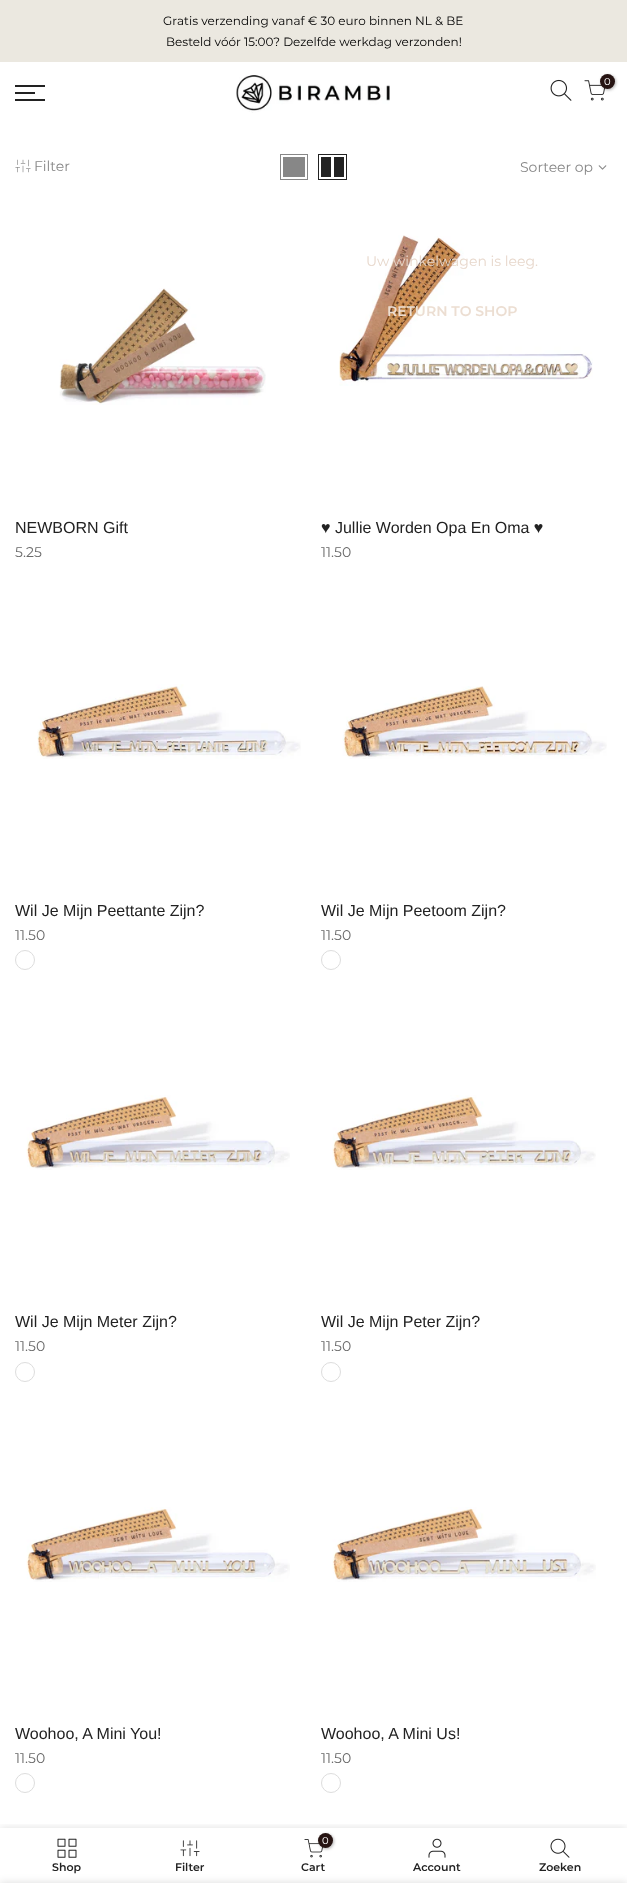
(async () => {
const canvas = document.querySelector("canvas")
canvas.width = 627
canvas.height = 1883
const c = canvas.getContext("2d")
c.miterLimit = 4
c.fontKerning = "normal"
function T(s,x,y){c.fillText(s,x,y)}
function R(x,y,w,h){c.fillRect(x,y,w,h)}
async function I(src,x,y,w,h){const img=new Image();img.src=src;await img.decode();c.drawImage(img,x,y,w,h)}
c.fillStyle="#fff"
R(0,0,627,1883)
c.fillStyle="#ebe8e0"
R(0,0,627,62)
c.font="12px Montserrat"
c.fillStyle="#000"
T("Gratis verzending vanaf € 30 euro binnen NL & BE",163,25)
T("Besteld vóór 15:00? Dezelfde werkdag verzonden!",166,46)
await I("1.png",236,75,154,38)
await I("2.png",550,79,22,22)
await I("3.png",584,80,21,21)
c.fillStyle="#0000004d"
c.filter="blur(1.5px)"
c.beginPath()
c.roundRect(601,75,15,15,7.5)
c.fill()
c.filter="none"
c.fillStyle="#261412"
c.beginPath()
c.arc(607.5,81.5,7.5,0,7)
c.fill()
c.font="10px Montserrat"
c.fillStyle="#fff"
T("0",604,85)
c.fillStyle="#222"
R(15,85,30,2)
R(15,92,20,2)
R(15,99,30,2)
await I("4.png",15,159,16,14)
c.font="14px Montserrat"
c.fillStyle="#878787"
T("Filter",34,171)
c.strokeStyle="#878787"
c.strokeRect(280.5,154.5,27,25)
R(283,157,22,20)
c.strokeStyle="#222"
c.strokeRect(318.5,154.5,28,25)
c.fillStyle="#222"
R(334,157,10,20)
R(321,157,10,20)
c.fillStyle="#878787"
T("Sorteer op",520,172)
await I("5.png",598,165,9,5)
await I("6.png",59,288,207,117)
c.font="16px Liberation Sans"
c.fillStyle="#222"
T("NEWBORN Gift",15,533)
c.font="14px Montserrat"
c.fillStyle="#696969"
T("5.25",15,557)
await I("7.png",339,235,254,151)
c.font="16px Liberation Sans"
c.fillStyle="#222"
T("♥ Jullie Worden Opa En Oma ♥",321,533)
c.font="14px Montserrat"
c.fillStyle="#696969"
T("11.50",321,557)
await I("8.png",37,684,264,75)
c.font="16px Liberation Sans"
c.fillStyle="#222"
T("Wil Je Mijn Peettante Zijn?",15,916)
c.font="14px Montserrat"
c.fillStyle="#696969"
T("11.50",15,940)
c.beginPath()
c.arc(25,960,9.5,0,7)
c.strokeStyle="#ddd"
c.stroke()
await I("9.png",342,686,265,73)
c.font="16px Liberation Sans"
c.fillStyle="#222"
T("Wil Je Mijn Peetoom Zijn?",321,916)
c.font="14px Montserrat"
c.fillStyle="#696969"
T("11.50",321,940)
c.beginPath()
c.arc(331,960,9.5,0,7)
c.stroke()
await I("10.png",26,1095,264,75)
c.font="16px Liberation Sans"
c.fillStyle="#222"
T("Wil Je Mijn Meter Zijn?",15,1327)
c.font="14px Montserrat"
c.fillStyle="#696969"
T("11.50",15,1351)
c.beginPath()
c.arc(25,1372,9.5,0,7)
c.stroke()
await I("11.png",332,1095,264,75)
c.font="16px Liberation Sans"
c.fillStyle="#222"
T("Wil Je Mijn Peter Zijn?",321,1327)
c.font="14px Montserrat"
c.fillStyle="#696969"
T("11.50",321,1351)
c.beginPath()
c.arc(331,1372,9.5,0,7)
c.stroke()
await I("12.png",26,1507,264,75)
c.font="16px Liberation Sans"
c.fillStyle="#222"
T("Woohoo, A Mini You!",15,1739)
c.font="14px Montserrat"
c.fillStyle="#696969"
T("11.50",15,1763)
c.beginPath()
c.arc(25,1783,9.5,0,7)
c.stroke()
await I("13.png",332,1507,264,75)
c.font="16px Liberation Sans"
c.fillStyle="#222"
T("Woohoo, A Mini Us!",321,1739)
c.font="14px Montserrat"
c.fillStyle="#696969"
T("11.50",321,1763)
c.beginPath()
c.arc(331,1783,9.5,0,7)
c.stroke()
c.fillStyle="#e7d7cb"
T("Uw winkelwagen is leeg.",366,266)
c.font="600 14px Montserrat"
c.fillStyle="#ecded2"
T("RETURN TO SHOP",387,316)
c.save()
c.beginPath()
c.rect(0,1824,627,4)
c.clip()
c.fillStyle="#0000001f"
c.filter="blur(4.5px)"
c.beginPath()
c.rect(0,1828,627,55)
c.fill()
c.filter="none"
c.restore()
await I("14.png",57,1838,20,20)
c.font="600 11px Montserrat"
c.fillStyle="#222"
T("Shop",52,1871)
await I("15.png",180,1840,20,17)
T("Filter",175,1871)
await I("16.png",304,1839,19,19)
c.fillStyle="#0000004d"
c.filter="blur(1.5px)"
c.beginPath()
c.roundRect(319,1834,15,15,7.5)
c.fill()
c.filter="none"
c.fillStyle="#261412"
c.beginPath()
c.arc(325.5,1840.5,7.5,0,7)
c.fill()
c.font="10px Montserrat"
c.fillStyle="#fff"
T("0",322,1844)
c.font="600 11px Montserrat"
c.fillStyle="#222"
T("Cart",301,1871)
await I("17.png",428,1838,18,20)
T("Account",413,1871)
await I("18.png",550,1838,20,20)
T("Zoeken",539,1871)
c.fillStyle="#00000024"
c.filter="blur(4.5px)"
c.beginPath()
c.rect(0,1883,627,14)
c.fill()
c.filter="none"
})()
